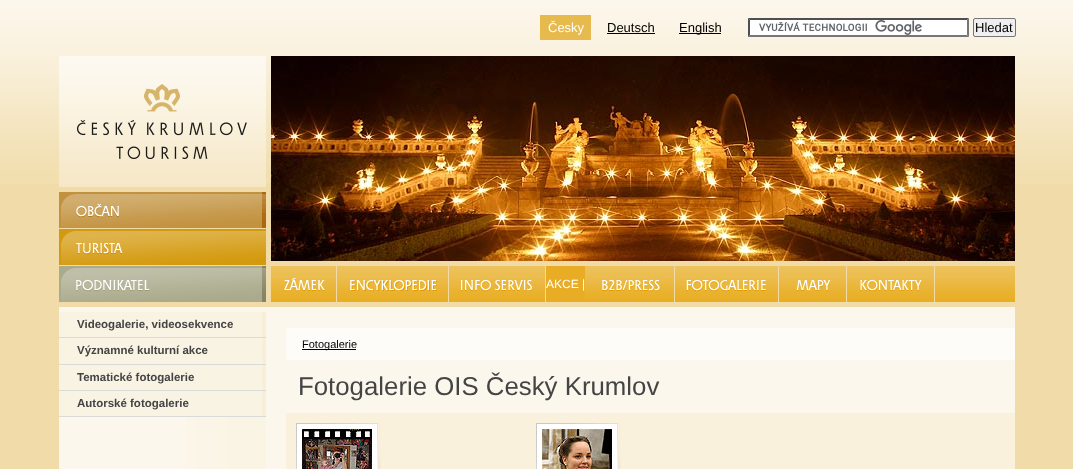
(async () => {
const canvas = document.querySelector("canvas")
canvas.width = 1073
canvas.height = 469
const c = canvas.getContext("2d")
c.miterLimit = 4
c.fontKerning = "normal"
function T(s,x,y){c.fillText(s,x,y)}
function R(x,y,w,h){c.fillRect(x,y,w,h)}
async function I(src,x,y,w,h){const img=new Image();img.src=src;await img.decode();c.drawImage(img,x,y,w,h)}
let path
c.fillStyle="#f1dca9"
R(0,0,1073,469)
await I("1.png",0,0,1073,184)
c.fillStyle="#e7ba4e"
R(540,15,51,25)
c.font="13px Liberation Sans"
c.fillStyle="#fff"
T("Česky",548,32)
c.fillStyle="#000"
T("Deutsch",607,32)
R(607,33,48,1)
R(679,33,42,1)
T("English",679,32)
c.fillStyle="#fff"
R(748,18,221,19)
await I("2.png",759,20,163,15)
c.fillStyle="#4f4f4f"
path = new Path2D("M748 18h221l-2 2h-217z")
c.fill(path)
c.fillStyle="#767676"
path = new Path2D("M969 18v19l-2-2v-15z")
c.fill(path)
path = new Path2D("M969 37h-221l2-2h217z")
c.fill(path)
c.fillStyle="#4f4f4f"
path = new Path2D("M748 37v-19l2 2v15z")
c.fill(path)
c.fillStyle="#efefef"
c.beginPath()
c.roundRect(973.5,18.5,42,18,1.5)
c.fill()
c.strokeStyle="#767676"
c.stroke()
c.fillStyle="#000"
T("Hledat",975,32)
await I("3.png",271,56,744,205)
await I("4.png",59,56,207,131)
await I("5.png",59,192,207,36)
await I("6.png",59,229,207,36)
await I("7.png",262,266,4,36)
await I("8.png",59,266,203,36)
await I("9.png",935,266,80,36)
await I("10.png",336,266,1,36)
await I("11.png",271,266,65,36)
await I("10.png",448,266,1,36)
await I("12.png",337,266,111,36)
await I("10.png",545,266,1,36)
await I("13.png",449,266,96,36)
c.fillStyle="#e8ad25"
R(546,266,39,36)
c.font="12px Liberation Sans"
c.fillStyle="#fff"
T("AKCE |",546,288)
await I("10.png",674,266,1,36)
await I("14.png",585,266,89,36)
await I("10.png",778,266,1,36)
await I("15.png",675,266,103,36)
await I("10.png",846,266,1,36)
await I("16.png",779,266,67,36)
await I("10.png",934,266,1,36)
await I("17.png",847,266,87,36)
c.fillStyle="#fbf7ed"
R(59,307,956,162)
await I("18.png",186,417,80,52)
c.fillStyle="#f9f3e4"
R(59,312,203,25)
c.fillStyle="#f8efd8"
R(262,312,4,105)
c.fillStyle="#dadada"
R(59,337,207,1)
c.font="bold 11.5px Liberation Sans"
c.fillStyle="#444"
T("Videogalerie, videosekvence",77,328)
c.fillStyle="#f9f3e4"
R(59,338,203,26)
c.fillStyle="#dadada"
R(59,364,207,1)
c.fillStyle="#444"
T("Významné kulturní akce",77,354)
c.fillStyle="#f9f3e4"
R(59,365,203,25)
c.fillStyle="#dadada"
R(59,390,207,1)
c.fillStyle="#444"
T("Tematické fotogalerie",77,381)
c.fillStyle="#f9f3e4"
R(59,391,203,25)
c.fillStyle="#dadada"
R(59,416,207,1)
c.fillStyle="#444"
T("Autorské fotogalerie",77,407)
c.fillStyle="#fdfcf9"
R(286,328,729,32)
c.fillStyle="#000"
R(302,349,54,1)
c.font="11px Liberation Sans"
T("Fotogalerie",302,348)
c.font="25.8px Liberation Sans"
c.fillStyle="#444"
T("Fotogalerie OIS Český Krumlov",298,395)
c.fillStyle="#f9f1dc"
R(286,413,729,56)
await I("19.png",296,423,85,46)
await I("20.png",302,429,70,40)
await I("19.png",536,423,85,46)
await I("21.png",542,429,70,40)
})()
